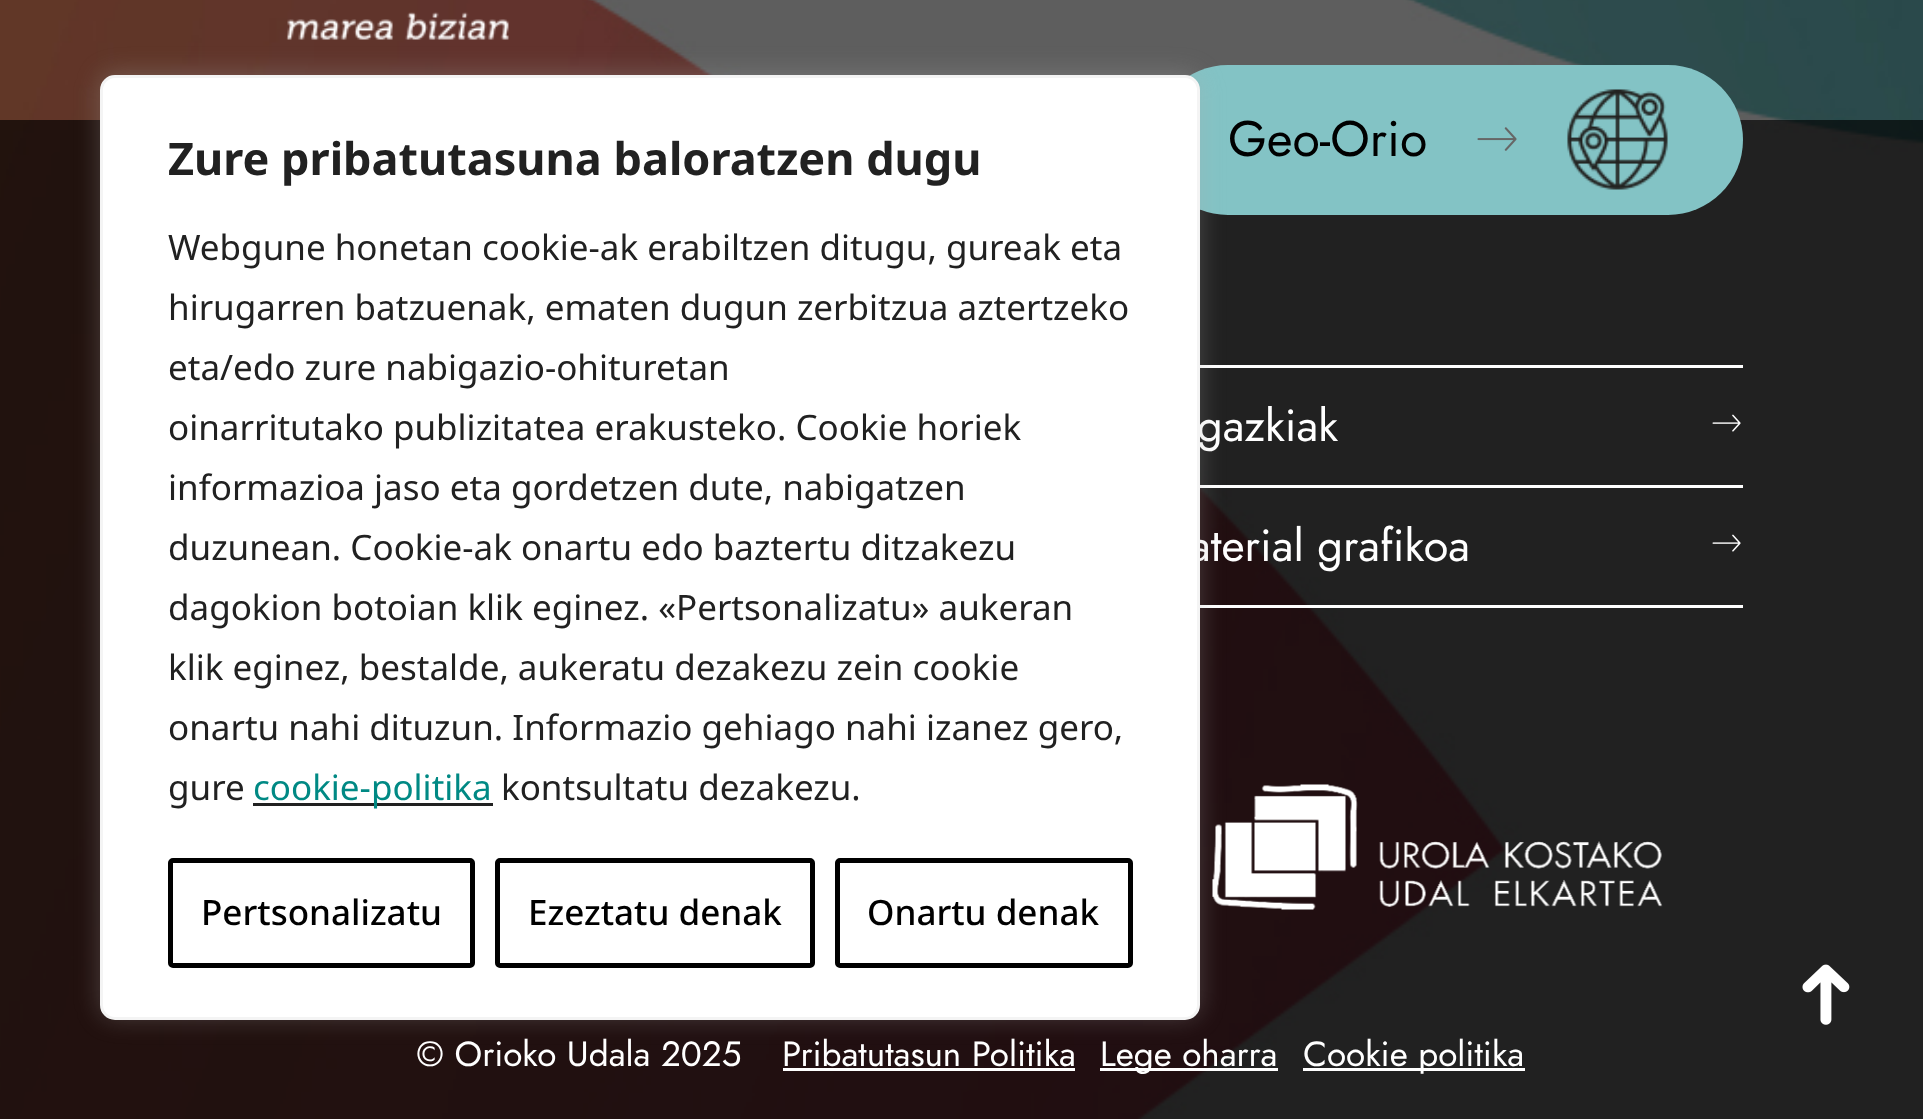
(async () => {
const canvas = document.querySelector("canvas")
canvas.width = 1923
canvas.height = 1119
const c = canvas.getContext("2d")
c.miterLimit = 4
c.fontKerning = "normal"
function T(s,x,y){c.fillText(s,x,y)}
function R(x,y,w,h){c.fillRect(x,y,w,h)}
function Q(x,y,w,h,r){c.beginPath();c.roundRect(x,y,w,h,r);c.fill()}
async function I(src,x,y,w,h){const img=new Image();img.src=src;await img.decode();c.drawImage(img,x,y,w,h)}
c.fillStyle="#fff"
R(0,0,1923,1119)
await I("1.png",0,0,1923,1119)
await I("2.png",286,12,223,28)
c.fillStyle="#000000a6"
R(0,120,1923,999)
c.fillStyle="#83c3c5"
Q(1153,65,590,150,75)
c.font="50px Jost"
c.fillStyle="#000"
T("Geo-Orio",1228,156)
await I("3.png",1477,127,40,24)
await I("4.png",1567,89,101,101)
c.fillStyle="#fff"
R(1200,365,543,3)
c.font="45px Jost"
T("gazkiak",1197,441)
await I("5.png",1712,414,29,18)
R(1200,485,543,3)
R(1200,605,543,3)
T("aterial grafikoa",1189,561)
await I("5.png",1712,534,29,18)
await I("6.png",1802,964,48,61)
await I("7.png",1212,784,451,126)
c.font="35px Jost"
T("© Orioko Udala 2025",416,1066)
T("Pribatutasun Politika",782,1066)
R(783,1068,292,3)
R(1100,1068,178,3)
T("Lege oharra",1100,1066)
R(1303,1068,222,3)
T("Cookie politika",1303,1066)
c.fillStyle="#acabab4d"
c.filter="blur(12.5px)"
c.beginPath()
c.roundRect(100,73,1100,945,15)
c.fill()
c.filter="none"
c.fillStyle="#fff"
c.beginPath()
c.roundRect(101.5,76.5,1097,942,13.5)
c.fill()
c.strokeStyle="#f4f4f4"
c.lineWidth=3
c.stroke()
c.font="bold 45px Noto Sans"
c.fillStyle="#212121"
T("Zure pribatutasuna baloratzen dugu",168,175)
c.font="35px Noto Sans"
T("Webgune honetan cookie-ak erabiltzen ditugu, gureak eta",168,260)
T("hirugarren batzuenak, ematen dugun zerbitzua aztertzeko",168,320)
T("eta/edo zure nabigazio-ohituretan",168,380)
T("oinarritutako publizitatea erakusteko. Cookie horiek",168,440)
T("informazioa jaso eta gordetzen dute, nabigatzen",168,500)
T("duzunean. Cookie-ak onartu edo baztertu ditzakezu",168,560)
T("dagokion botoian klik eginez. «Pertsonalizatu» aukeran",168,620)
T("klik eginez, bestalde, aukeratu dezakezu zein cookie",168,680)
T("onartu nahi dituzun. Informazio gehiago nahi izanez gero,",168,740)
T("gure",168,800)
R(253,803,240,3)
c.fillStyle="#008984"
T("cookie-politika",253,800)
c.fillStyle="#212121"
T("kontsultatu dezakezu.",501,800)
c.beginPath()
c.roundRect(170.5,860.5,302,105,2.5)
c.strokeStyle="#000"
c.lineWidth=5
c.stroke()
c.font="500 35px Noto Sans"
c.fillStyle="#000"
T("Pertsonalizatu",201,925)
c.beginPath()
c.roundRect(497.5,860.5,315,105,2.5)
c.stroke()
T("Ezeztatu denak",528,925)
c.beginPath()
c.roundRect(837.5,860.5,293,105,2.5)
c.stroke()
T("Onartu denak",867,925)
})()
